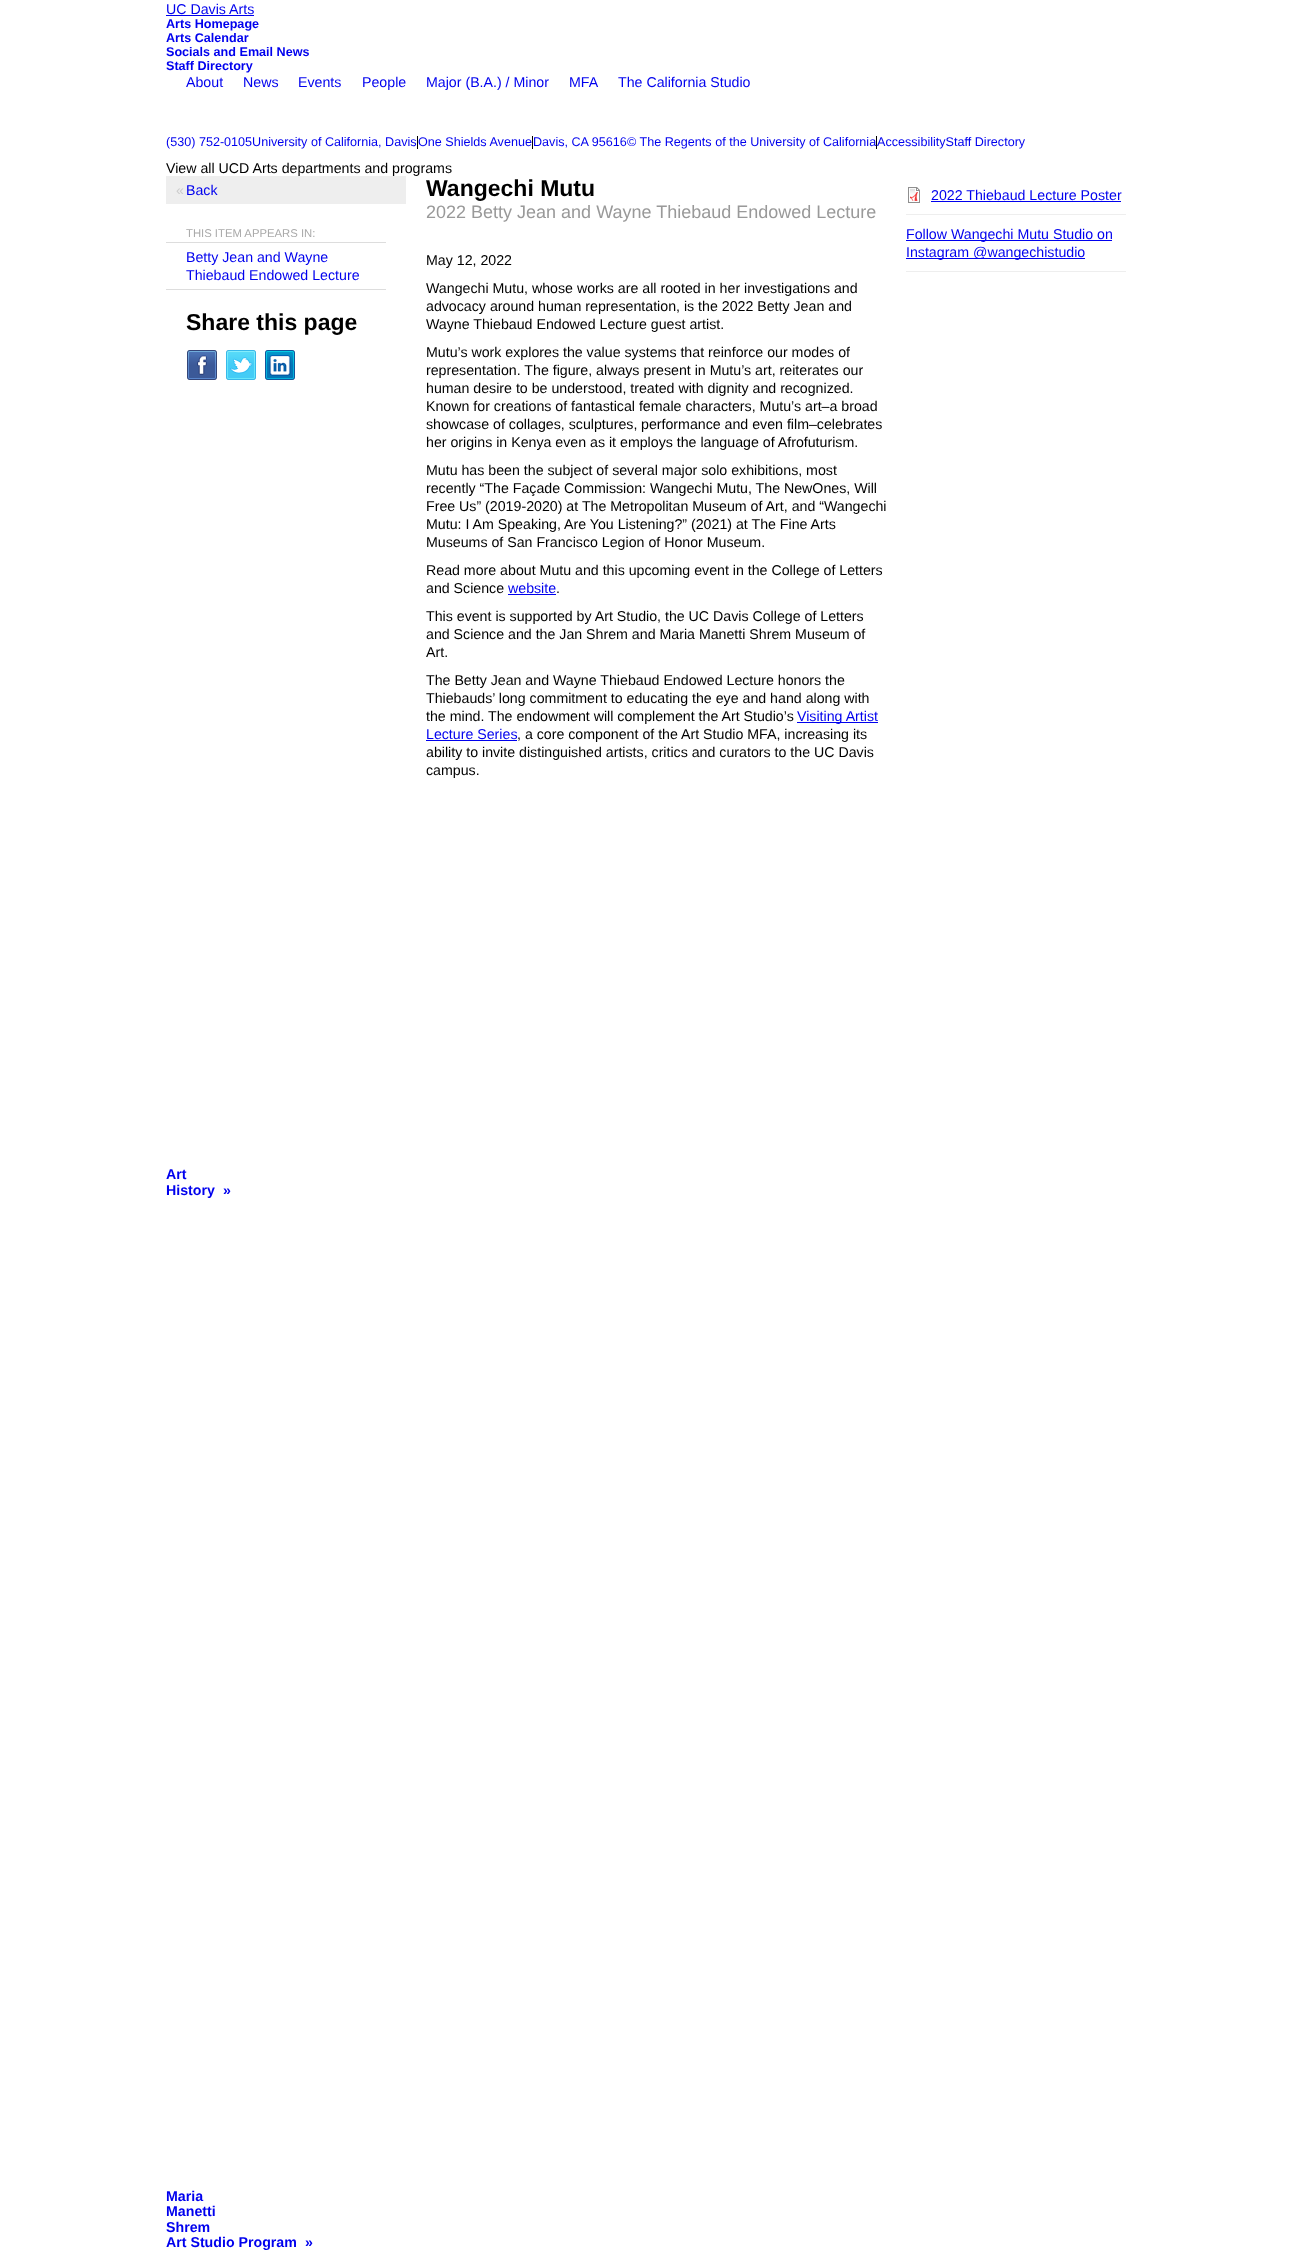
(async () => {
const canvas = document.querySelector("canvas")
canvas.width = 1312
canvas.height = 2267
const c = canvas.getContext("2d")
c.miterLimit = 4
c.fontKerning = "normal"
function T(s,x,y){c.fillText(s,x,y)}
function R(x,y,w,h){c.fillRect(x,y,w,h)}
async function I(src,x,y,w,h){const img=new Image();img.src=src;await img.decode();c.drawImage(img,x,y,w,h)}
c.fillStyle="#fff"
R(0,0,1312,2267)
c.font="14.2px Liberation Sans"
c.fillStyle="#00e"
T("UC Davis Arts",166,14)
R(166,15,88,1)
c.font="bold 12.6px Liberation Sans"
T("Arts Homepage",166,28)
T("Arts Calendar",166,42)
T("Socials and Email News",166,56)
T("Staff Directory",166,70)
c.font="14.2px Liberation Sans"
T("About",186,87)
T("News",243,87)
T("Events",298,87)
T("People",362,87)
T("Major (B.A.) / Minor",426,87)
T("MFA",569,87)
T("The California Studio",618,87)
c.font="12.6px Liberation Sans"
T("(530) 752-0105University of California, Davis",166,146)
c.fillStyle="#000"
R(417,136,1,13)
R(532,136,1,13)
c.fillStyle="#00e"
T("One Shields Avenue",418,146)
T("Davis, CA 95616",533,146)
c.fillStyle="#000"
R(876,136,1,13)
c.fillStyle="#00e"
T("© The Regents of the University of California",627,146)
T("AccessibilityStaff Directory",877,146)
c.fillStyle="#eee"
R(166,176,240,28)
c.font="14.2px Liberation Sans"
c.fillStyle="#ccc"
T("«",176,195)
c.fillStyle="#00e"
T("Back",186,195)
c.font="11.3px Liberation Sans"
c.fillStyle="#aaa"
T("THIS ITEM APPEARS IN:",186,237)
c.fillStyle="#ddd"
R(166,242,220,1)
R(166,289,220,1)
c.font="14.2px Liberation Sans"
c.fillStyle="#00e"
T("Betty Jean and Wayne",186,262)
T("Thiebaud Endowed Lecture",186,280)
c.font="bold 23px Liberation Sans"
c.fillStyle="#000"
T("Share this page",186,330)
await I("1.png",187,350,30,30)
await I("2.png",226,350,30,30)
await I("3.png",265,350,30,30)
T("Wangechi Mutu",426,196)
c.font="18px Liberation Sans"
c.fillStyle="#999"
T("2022 Betty Jean and Wayne Thiebaud Endowed Lecture",426,218)
c.font="14.2px Liberation Sans"
c.fillStyle="#000"
T("May 12, 2022",426,265)
T("Wangechi Mutu, whose works are all rooted in her investigations and",426,293)
T("advocacy around human representation, is the 2022 Betty Jean and",426,311)
T("Wayne Thiebaud Endowed Lecture guest artist.",426,329)
T("Mutu’s work explores the value systems that reinforce our modes of",426,357)
T("representation. The figure, always present in Mutu’s art, reiterates our",426,375)
T("human desire to be understood, treated with dignity and recognized.",426,393)
T("Known for creations of fantastical female characters, Mutu’s art–a broad",426,411)
T("showcase of collages, sculptures,",426,429)
T("performance and even film–celebrates",641,429)
T("her origins in Kenya even as it employs the language of Afrofuturism.",426,447)
T("Mutu has been the subject of several major solo exhibitions, most",426,475)
T("recently “The Façade Commission: Wangechi Mutu, The NewOnes, Will",426,493)
T("Free Us” (2019-2020) at The Metropolitan Museum of Art, and “Wangechi",426,511)
T("Mutu: I Am Speaking, Are You Listening?” (2021) at The Fine Arts",426,529)
T("Museums of San Francisco Legion of Honor Museum.",426,547)
T("Read more about Mutu and this upcoming event in the College of Letters",426,575)
T("and Science",426,593)
c.fillStyle="#00e"
T("website",508,593)
R(508,594,48,1)
c.fillStyle="#000"
T(".",556,593)
T("This event is supported by Art Studio, the UC Davis College of Letters",426,621)
T("and Science and the Jan Shrem and Maria Manetti Shrem Museum of",426,639)
T("Art.",426,657)
T("The Betty Jean and Wayne Thiebaud Endowed Lecture honors the",426,685)
T("Thiebauds’ long commitment to educating the eye and hand along with",426,703)
T("the mind. The endowment will complement the Art Studio’s",426,721)
c.fillStyle="#00e"
R(797,722,81,1)
T("Visiting Artist",797,721)
T("Lecture Series",426,739)
R(426,740,91,1)
c.fillStyle="#000"
T(", a core component of the Art Studio MFA, increasing its",517,739)
T("ability to invite distinguished artists, critics and curators to the UC Davis",426,757)
T("campus.",426,775)
c.fillStyle="#eee"
R(906,214,220,1)
await I("4.png",908,187,12,16)
c.fillStyle="#00e"
T("2022 Thiebaud Lecture Poster",931,200)
R(931,201,190,1)
c.fillStyle="#eee"
R(906,271,220,1)
c.fillStyle="#00e"
R(906,240,206,1)
T("Follow Wangechi Mutu Studio on",906,239)
R(906,258,179,1)
T("Instagram @wangechistudio",906,257)
c.fillStyle="#000"
T("View all UCD Arts departments and programs",166,173)
c.font="bold 14.2px Liberation Sans"
c.fillStyle="#00e"
T("Art",166,1179)
T("History",166,1195)
T("»",223,1195)
T("Maria",166,2201)
T("Manetti",166,2216)
T("Shrem",166,2232)
T("Art Studio Program",166,2247)
T("»",305,2247)
})()
